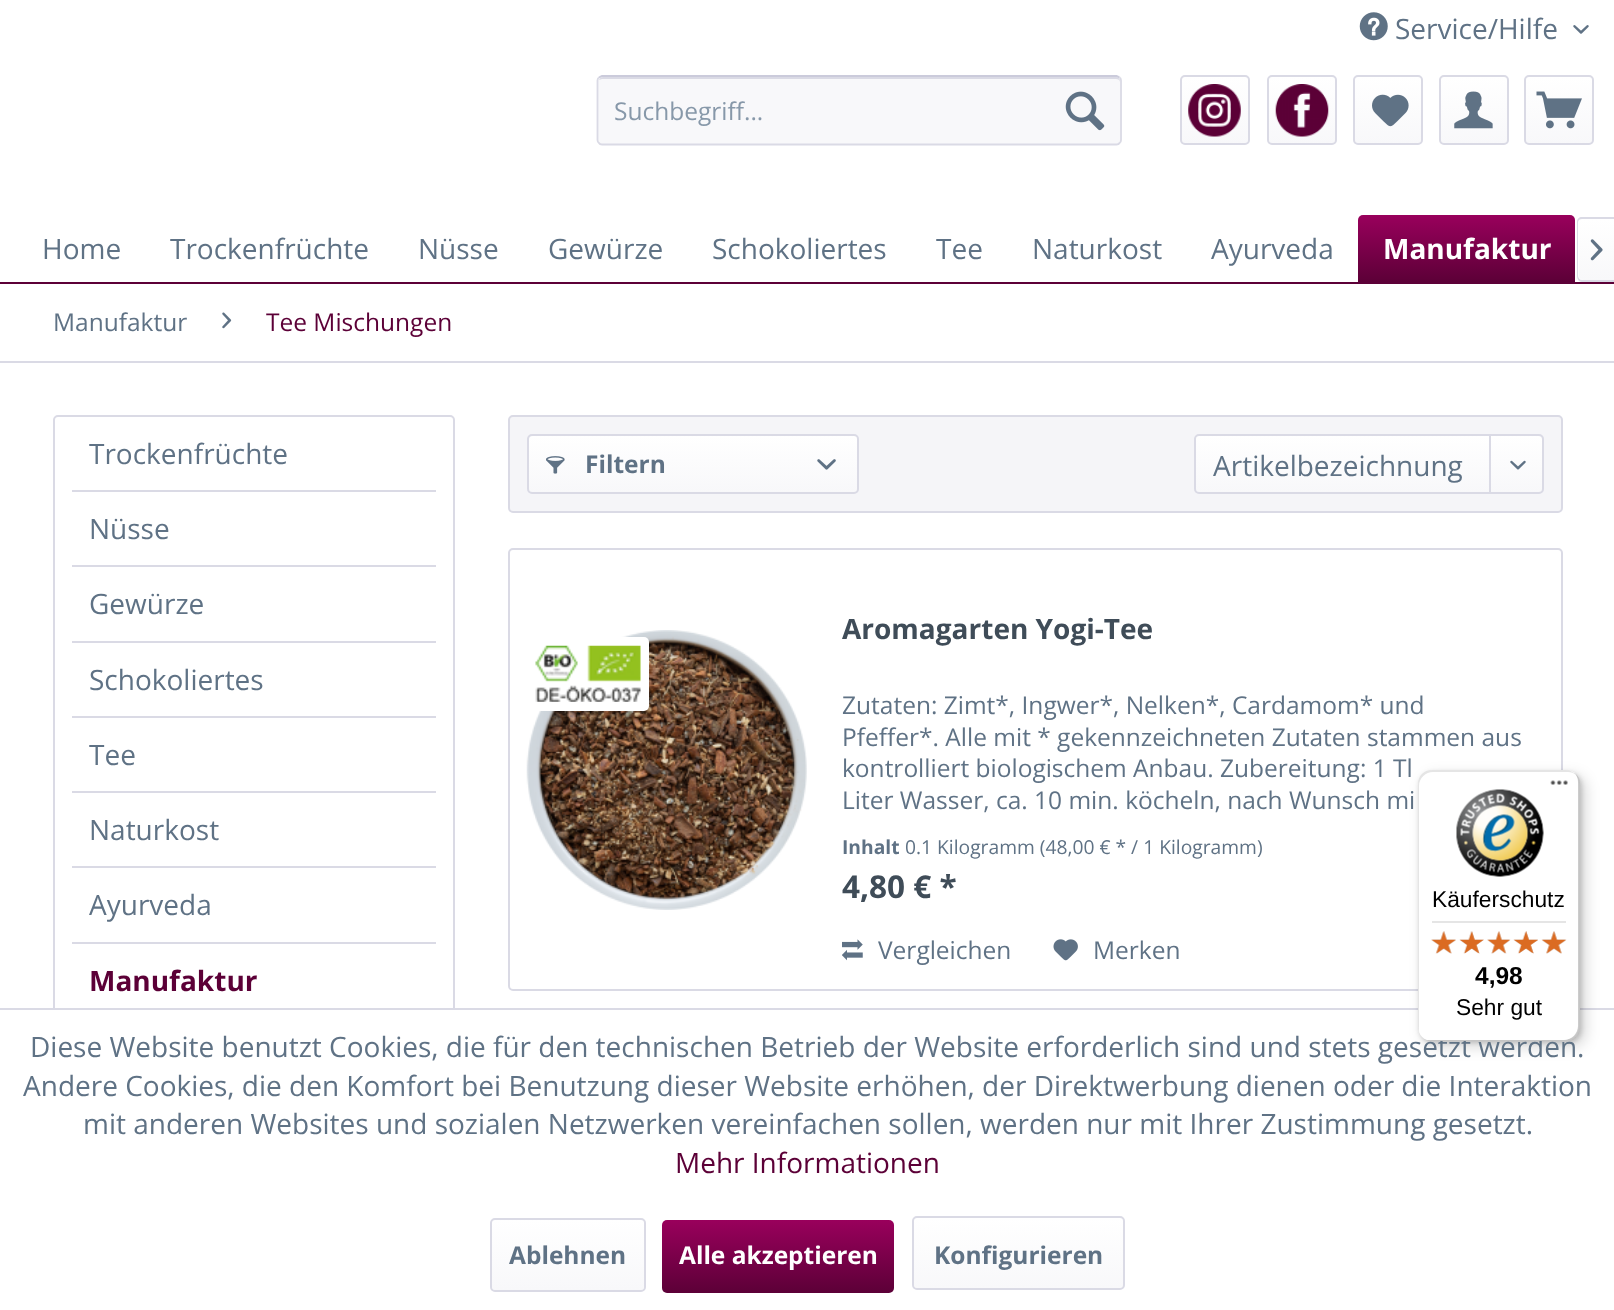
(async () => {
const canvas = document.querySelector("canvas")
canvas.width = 1614
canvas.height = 1310
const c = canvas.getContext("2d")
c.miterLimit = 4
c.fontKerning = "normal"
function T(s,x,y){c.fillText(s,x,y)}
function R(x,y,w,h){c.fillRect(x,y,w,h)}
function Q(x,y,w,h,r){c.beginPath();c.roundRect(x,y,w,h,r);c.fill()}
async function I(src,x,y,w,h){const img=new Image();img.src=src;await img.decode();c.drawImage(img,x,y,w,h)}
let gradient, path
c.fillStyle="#fff"
R(0,0,1614,1310)
await I("1.png",1359,12,29,29)
c.font="28px Open Sans"
c.fillStyle="#5f7285"
T("Service/Hilfe",1395,39)
await I("2.png",1573,25,16,9)
c.fillStyle="#f8f8fa"
Q(597,75,525,70,5)
c.fillStyle="#dadae5"
path = new Path2D("M602 79h514c2 0 4 1 4 3v-1c0-2-2-4-4-4h-513c-2 0-3 1-4 3z")
c.fill(path)
path = new Path2D("M599 77.5l3-1.5h514.5l3 1.5")
c.strokeStyle="#cbcbdb"
c.lineWidth=1.8
c.stroke(path)
path = new Path2D("M1119.5 77.5c1 .5 1.5 2 1.5 3v59.5c0 1-.5 2.5-1.5 3c-.5 1-2 1.5-3 1.5h-514.5c-1 0-2.5-.5-3-1.5c-1-.5-1.5-2-1.5-3v-59.5c0-1 .5-2.5 1.5-3")
c.strokeStyle="#dadae5"
c.stroke(path)
c.font="24.5px Open Sans"
c.fillStyle="#8798a9"
T("Suchbegriff...",614,120)
await I("3.png",1065,91,40,40)
gradient = c.createLinearGradient(1215,77,1215,144)
gradient.addColorStop(0,"#fff")
gradient.addColorStop(1,"#f8f8fa")
c.fillStyle = gradient
Q(1181,77,67,67,4)
c.beginPath()
c.roundRect(1181,76,68,68,4)
c.lineWidth=2
c.stroke()
await I("4.png",1188,84,53,53)
gradient = c.createLinearGradient(1302,77,1302,144)
gradient.addColorStop(0,"#fff")
gradient.addColorStop(1,"#f8f8fa")
c.fillStyle = gradient
Q(1269,77,66,67,4)
c.beginPath()
c.roundRect(1268,76,68,68,4)
c.stroke()
await I("5.png",1275,84,54,53)
gradient = c.createLinearGradient(1388,77,1388,144)
gradient.addColorStop(0,"#fff")
gradient.addColorStop(1,"#f8f8fa")
c.fillStyle = gradient
Q(1355,77,66,67,4)
c.beginPath()
c.roundRect(1354,76,68,68,4)
c.stroke()
await I("6.png",1372,94,37,33)
gradient = c.createLinearGradient(1474,77,1474,144)
gradient.addColorStop(0,"#fff")
gradient.addColorStop(1,"#f8f8fa")
c.fillStyle = gradient
Q(1440,77,67,67,4)
c.beginPath()
c.roundRect(1440,76,68,68,4)
c.stroke()
await I("7.png",1454,91,39,38)
gradient = c.createLinearGradient(1559,77,1559,144)
gradient.addColorStop(0,"#fff")
gradient.addColorStop(1,"#f8f8fa")
c.fillStyle = gradient
Q(1526,77,67,67,4)
c.beginPath()
c.roundRect(1525,76,68,68,4)
c.stroke()
await I("8.png",1536,91,46,38)
c.fillStyle="#5c0037"
R(0,282,1614,2)
c.font="28px Open Sans"
c.fillStyle="#5f7285"
T("Home",42,259)
T("Trockenfrüchte",170,259)
T("Nüsse",418,259)
T("Gewürze",548,259)
T("Schokoliertes",712,259)
T("Tee",936,259)
T("Naturkost",1032,259)
T("Ayurveda",1211,259)
gradient = c.createLinearGradient(1467,215,1467,282)
gradient.addColorStop(0,"#99005c")
gradient.addColorStop(1,"#5c0037")
c.fillStyle = gradient
c.beginPath()
c.roundRect(1358,215,217,67,[5,5,0,0])
c.fill()
c.font="bold 28px Open Sans"
c.fillStyle="#fff"
T("Manufaktur",1383,259)
gradient = c.createLinearGradient(1597,219,1597,280)
gradient.addColorStop(0,"#fff")
gradient.addColorStop(1,"#f8f8fa")
c.fillStyle = gradient
path = new Path2D("M1583 219h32v61h-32c-2 0-4-2-4-4v-53c0-2 2-4 4-4z")
c.fill(path)
c.fillStyle="#dadae5"
path = new Path2D("M1582 217h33v65h-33c-3 0-5-3-5-6v-54c0-3 2-5 5-5zm0 2h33v61h-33c-2 0-4-2-4-4v-54c0-2 2-3 4-3z")
c.fill(path,"evenodd")
await I("9.png",1590,239,13,22)
R(0,361,1614,2)
c.font="24.5px Open Sans"
c.fillStyle="#5f7285"
T("Manufaktur",53,331)
await I("10.png",222,312,10,17)
c.fillStyle="#5c0037"
T("Tee Mischungen",266,331)
c.beginPath()
c.roundRect(54,416,400,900,4)
c.stroke()
c.fillStyle="#dadae5"
R(72,490,364,2)
c.font="28px Open Sans"
c.fillStyle="#5f7285"
T("Trockenfrüchte",89,464)
c.fillStyle="#dadae5"
R(72,565,364,2)
c.fillStyle="#5f7285"
T("Nüsse",89,539)
c.fillStyle="#dadae5"
R(72,641,364,2)
c.fillStyle="#5f7285"
T("Gewürze",89,614)
c.fillStyle="#dadae5"
R(72,716,364,2)
c.fillStyle="#5f7285"
T("Schokoliertes",89,690)
c.fillStyle="#dadae5"
R(72,791,364,2)
c.fillStyle="#5f7285"
T("Tee",89,765)
c.fillStyle="#dadae5"
R(72,866,364,2)
c.fillStyle="#5f7285"
T("Naturkost",89,840)
c.fillStyle="#dadae5"
R(72,942,364,2)
c.fillStyle="#5f7285"
T("Ayurveda",89,915)
c.font="bold 28px Open Sans"
c.fillStyle="#5c0037"
T("Manufaktur",89,991)
c.fillStyle="#f5f5f8"
c.beginPath()
c.roundRect(509,416,1053,96,4)
c.fill()
c.stroke()
gradient = c.createLinearGradient(693,436,693,492)
gradient.addColorStop(0,"#fff")
gradient.addColorStop(1,"#f8f8fa")
c.fillStyle = gradient
Q(529,436,329,56,4)
c.beginPath()
c.roundRect(528,435,330,58,4)
c.stroke()
await I("11.png",546,456,19,18)
c.font="bold 24.5px Open Sans"
c.fillStyle="#5f7285"
T("Filtern",585,473)
await I("12.png",817,459,19,11)
gradient = c.createLinearGradient(1369,436,1369,492)
gradient.addColorStop(0,"#fff")
gradient.addColorStop(1,"#f8f8fa")
c.fillStyle = gradient
Q(1195,436,347,56,4)
c.beginPath()
c.roundRect(1195,435,348,58,4)
c.stroke()
c.font="28px Open Sans"
c.fillStyle="#5f7285"
T("Artikelbezeichnung",1213,476)
c.fillStyle="#dadae5"
R(1489,436,2,58)
await I("13.png",1510,460,16,10)
c.beginPath()
c.roundRect(509,549,1053,441,4)
c.stroke()
await I("14.png",526,630,281,280)
c.font="bold 28px Open Sans"
c.fillStyle="#3f4c58"
T("Aromagarten Yogi-Tee",842,639)
c.fillStyle="#fff"
c.beginPath()
c.roundRect(527,637,122,74,[0,5,5,0])
c.fill()
await I("15.png",535,645,106,57)
c.font="24.5px Open Sans"
c.fillStyle="#5f7285"
T("Zutaten: Zimt*, Ingwer*, Nelken*, Cardamom* und",842,714)
T("Pfeffer*. Alle mit * gekennzeichneten Zutaten stammen aus",842,746)
T("kontrolliert biologischem Anbau. Zubereitung: 1 Tl",842,777)
T("Liter Wasser, ca. 10 min. köcheln, nach Wunsch mi",842,809)
c.font="bold 19.25px Open Sans"
T("Inhalt",842,854)
c.font="19.25px Open Sans"
T("0.1 Kilogramm (48,00 € * / 1 Kilogramm)",905,854)
c.font="bold 31.5px Open Sans"
c.fillStyle="#3f4c58"
T("4,80 € *",842,898)
await I("16.png",842,939,21,22)
c.font="24.5px Open Sans"
c.fillStyle="#5f7285"
T("Vergleichen",878,959)
await I("17.png",1053,939,25,22)
T("Merken",1093,959)
c.fillStyle="#dadae5"
R(0,1008,1614,2)
c.fillStyle="#00000026"
c.filter="blur(7px)"
c.beginPath()
c.roundRect(1423,775,163,272,14)
c.fill()
c.filter="none"
c.filter="blur(2px)"
c.beginPath()
c.roundRect(1419,772,163,271,14)
c.fill()
c.filter="none"
c.fillStyle="#fff"
R(53,1010,402,300)
c.font="28px Open Sans"
c.fillStyle="#5f7285"
T("Diese Website benutzt Cookies, die für den technischen Betrieb der Website erforderlich sind und stets gesetzt werden.",30,1057)
c.fillStyle="#fff"
Q(1418,770,162,271,14)
c.fillStyle="#0000001a"
path = new Path2D("M1433 772h135c3 0 6 1 8 3c-2-3-6-5-10-5h-134c-8 0-14 6-14 14v243c0 3 1 5 2 7c-1-1-1-3-1-5v-243c0-8 7-14 14-14z")
c.fill(path)
c.fillStyle="#00000033"
path = new Path2D("M1425 1039c2 1 4 2 7 2h134c8 0 14-6 14-14v-243c0-5-2-9-6-11c3 2 4 6 4 9v244c0 7-6 14-14 14h-134c-2 0-4 0-5-1z")
c.fill(path)
c.fillStyle="#32323233"
path = new Path2D("M1424 1039c2 1 5 2 8 2h134c8 0 14-6 14-14v-243c0-4-1-7-4-9c2 2 3 5 3 8v243c0 8-6 14-14 14h-135c-2 0-4 0-6-1z")
c.fill(path)
c.fillStyle="#ffffff4d"
path = new Path2D("M1423 1037c2 3 5 4 9 4h134c8 0 14-6 14-14v-243c0-4-1-7-4-9c2 2 3 5 3 8v243c0 8-6 14-14 14h-134c-3 0-6-1-8-3z")
c.fill(path)
await I("18.png",1550,780,18,5)
await I("19.png",1456,789,88,88)
c.font="22.75px Liberation Sans"
c.fillStyle="#000"
T("Käuferschutz",1432,907)
c.fillStyle="#e5e5e5"
R(1432,921,134,2)
await I("20.png",1431,931,25,23)
await I("21.png",1460,931,24,23)
await I("22.png",1487,931,23,23)
await I("23.png",1514,931,24,23)
await I("24.png",1542,931,24,23)
await I("25.png",1431,931,25,23)
await I("26.png",1459,931,25,23)
await I("27.png",1487,931,24,23)
await I("28.png",1513,931,25,23)
await I("29.png",1541,931,26,23)
c.font="bold 24.5px Liberation Sans"
c.fillStyle="#000"
T("4,98",1475,984)
c.font="22.75px Liberation Sans"
T("Sehr gut",1456,1015)
c.font="28px Open Sans"
c.fillStyle="#5f7285"
T("Andere Cookies, die den Komfort bei Benutzung dieser Website erhöhen, der Direktwerbung dienen oder die Interaktion",23,1096)
T("mit anderen Websites und sozialen Netzwerken vereinfachen sollen, werden nur mit Ihrer Zustimmung gesetzt.",83,1134)
c.fillStyle="#5c0037"
T("Mehr Informationen",675,1173)
gradient = c.createLinearGradient(568,1220,568,1290)
gradient.addColorStop(0,"#fff")
gradient.addColorStop(1,"#f8f8fa")
c.fillStyle = gradient
Q(492,1220,152,70,4)
c.beginPath()
c.roundRect(491,1219,154,72,4)
c.stroke()
c.font="bold 24.5px Open Sans"
c.fillStyle="#5f7285"
T("Ablehnen",509,1264)
gradient = c.createLinearGradient(778,1220,778,1293)
gradient.addColorStop(0,"#99005c")
gradient.addColorStop(1,"#5c0037")
c.fillStyle = gradient
Q(662,1220,232,73,5)
c.fillStyle="#fff"
T("Alle akzeptieren",679,1264)
gradient = c.createLinearGradient(1019,1218,1019,1288)
gradient.addColorStop(0,"#fff")
gradient.addColorStop(1,"#f8f8fa")
c.fillStyle = gradient
Q(914,1218,210,70,4)
c.beginPath()
c.roundRect(913,1217,211,72,4)
c.stroke()
c.fillStyle="#5f7285"
T("Konfigurieren",934,1264)
})()
